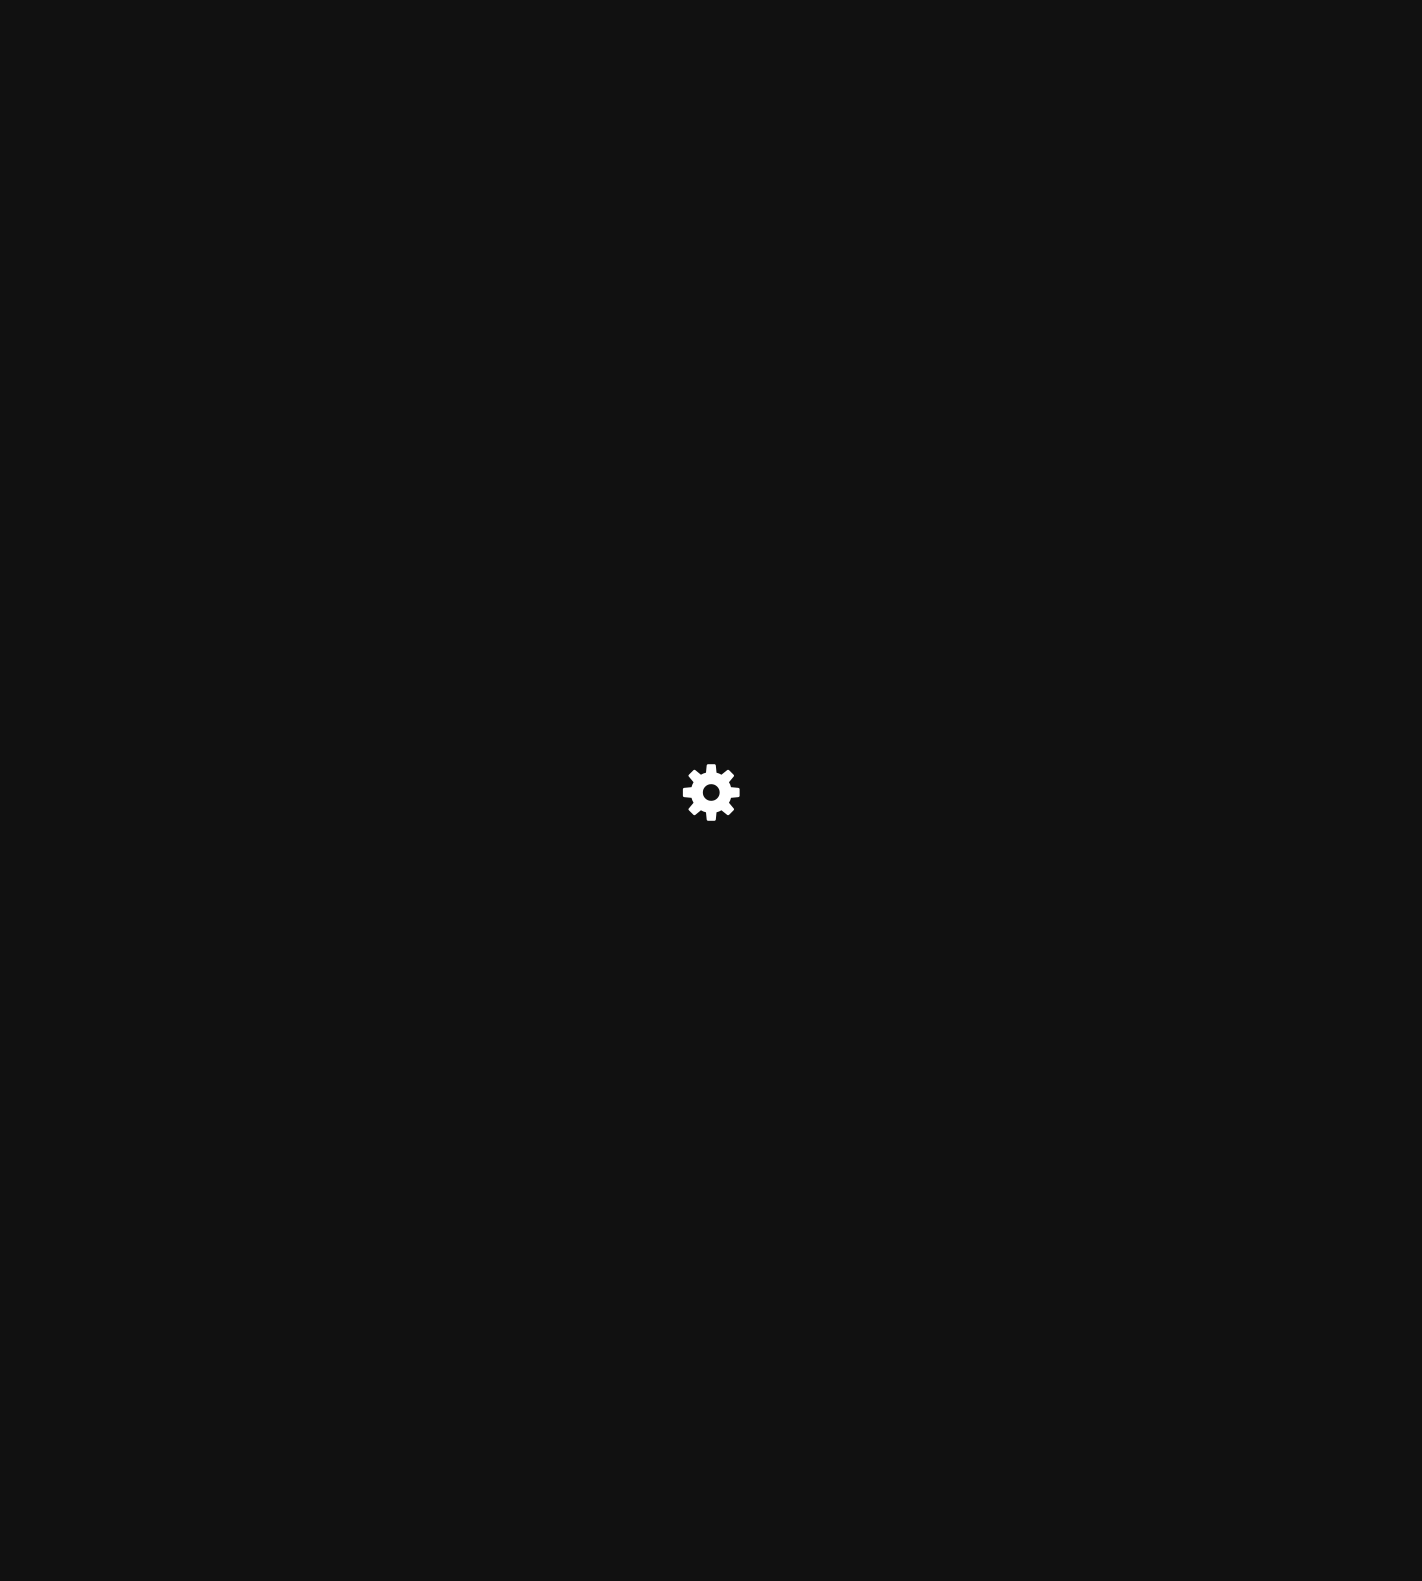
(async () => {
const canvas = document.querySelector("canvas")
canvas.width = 1422
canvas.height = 1581
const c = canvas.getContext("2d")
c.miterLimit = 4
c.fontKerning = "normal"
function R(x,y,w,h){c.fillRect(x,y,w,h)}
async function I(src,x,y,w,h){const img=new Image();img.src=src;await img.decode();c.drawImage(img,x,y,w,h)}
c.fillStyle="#111"
R(0,0,1422,1581)
await I("1.png",682,764,58,57)
})()
